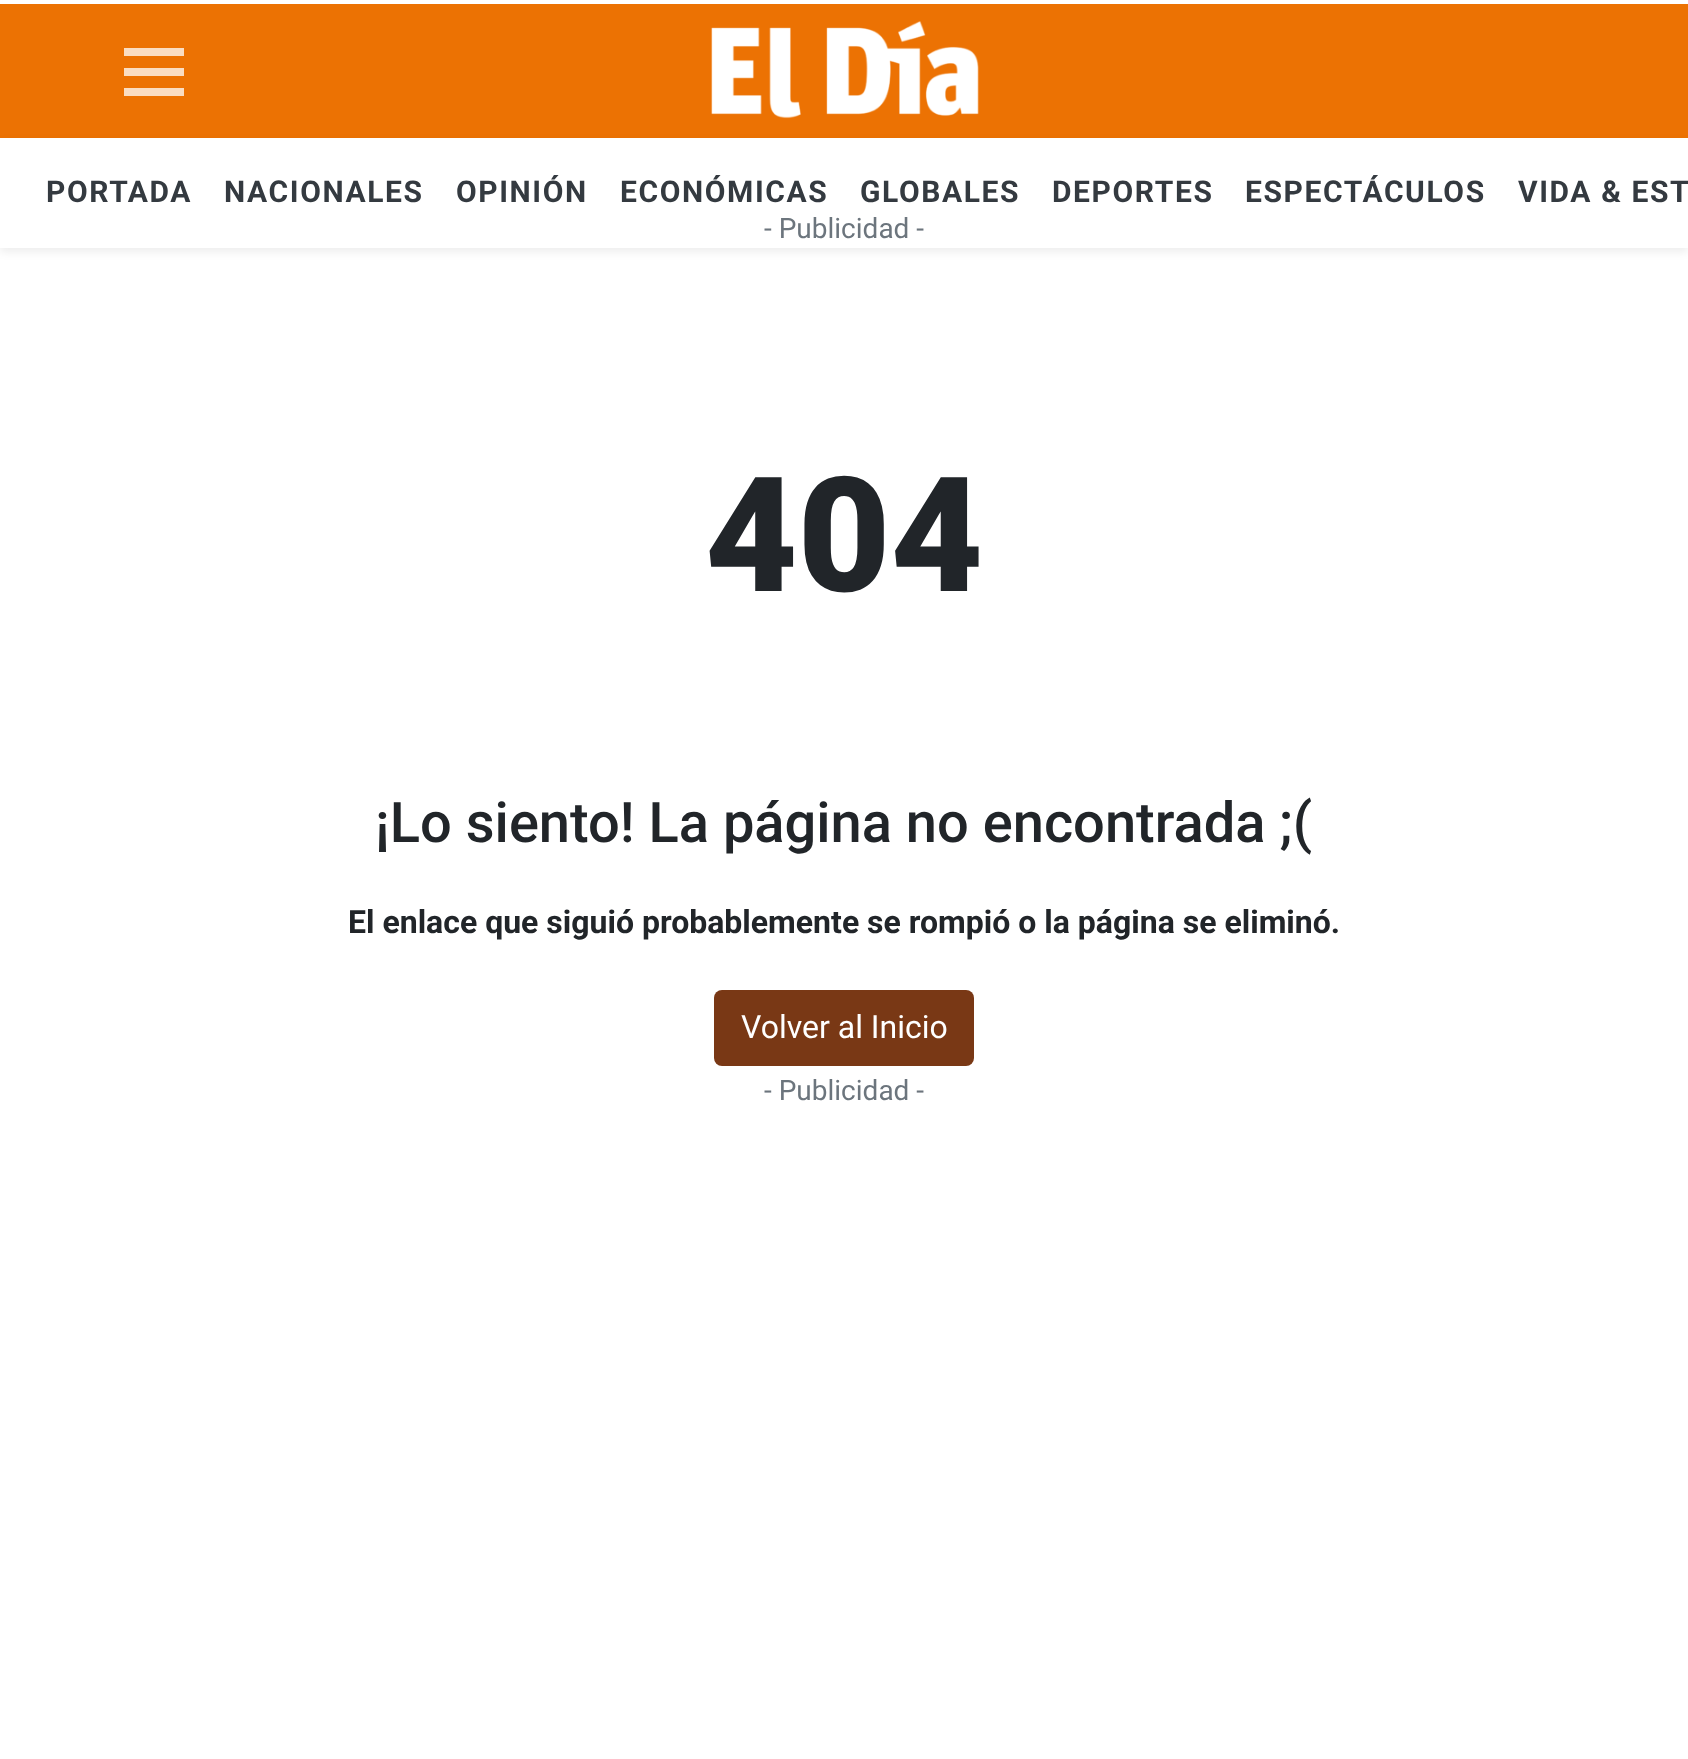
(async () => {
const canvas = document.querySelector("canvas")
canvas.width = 1688
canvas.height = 1759
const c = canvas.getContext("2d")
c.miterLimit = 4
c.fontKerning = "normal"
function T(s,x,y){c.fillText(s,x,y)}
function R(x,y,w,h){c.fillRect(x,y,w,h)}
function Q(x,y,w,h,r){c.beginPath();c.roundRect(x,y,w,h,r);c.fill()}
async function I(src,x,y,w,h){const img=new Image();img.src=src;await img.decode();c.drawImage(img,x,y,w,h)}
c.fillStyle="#fff"
R(0,0,1688,1759)
c.fillStyle="#ec7203"
R(0,4,1688,134)
c.fillStyle="#faddc2"
R(124,48,60,8)
R(124,68,60,8)
R(124,88,60,8)
await I("1.png",711,21,268,98)
c.fillStyle="#00000012"
c.filter="blur(4px)"
c.beginPath()
c.rect(0,142,1688,110)
c.fill()
c.filter="none"
c.fillStyle="#fff"
R(0,138,1688,110)
c.letterSpacing="1.6px"
c.font="bold 30px Roboto"
c.fillStyle="#343a40"
T("PORTADA",46,202)
T("NACIONALES",224,202)
T("OPINIÓN",456,202)
T("ECONÓMICAS",620,202)
T("GLOBALES",860,202)
T("DEPORTES",1052,202)
T("ESPECTÁCULOS",1245,202)
T("VIDA & EST",1518,202)
c.letterSpacing="0px"
c.font="28px Roboto"
c.fillStyle="#6c757d"
T("- Publicidad -",764,238)
c.font="900 160px Roboto"
c.fillStyle="#212529"
T("404",705,591)
c.font="500 56px Roboto"
T("¡Lo siento! La página no encontrada ;(",375,842)
c.font="bold 32px Roboto"
T("El enlace que siguió probablemente se rompió o la página se eliminó.",348,933)
c.fillStyle="#793815"
Q(714,990,260,76,8)
c.font="32px Roboto"
c.fillStyle="#fff"
T("Volver al Inicio",741,1038)
c.font="28px Roboto"
c.fillStyle="#6c757d"
T("- Publicidad -",764,1100)
})()
